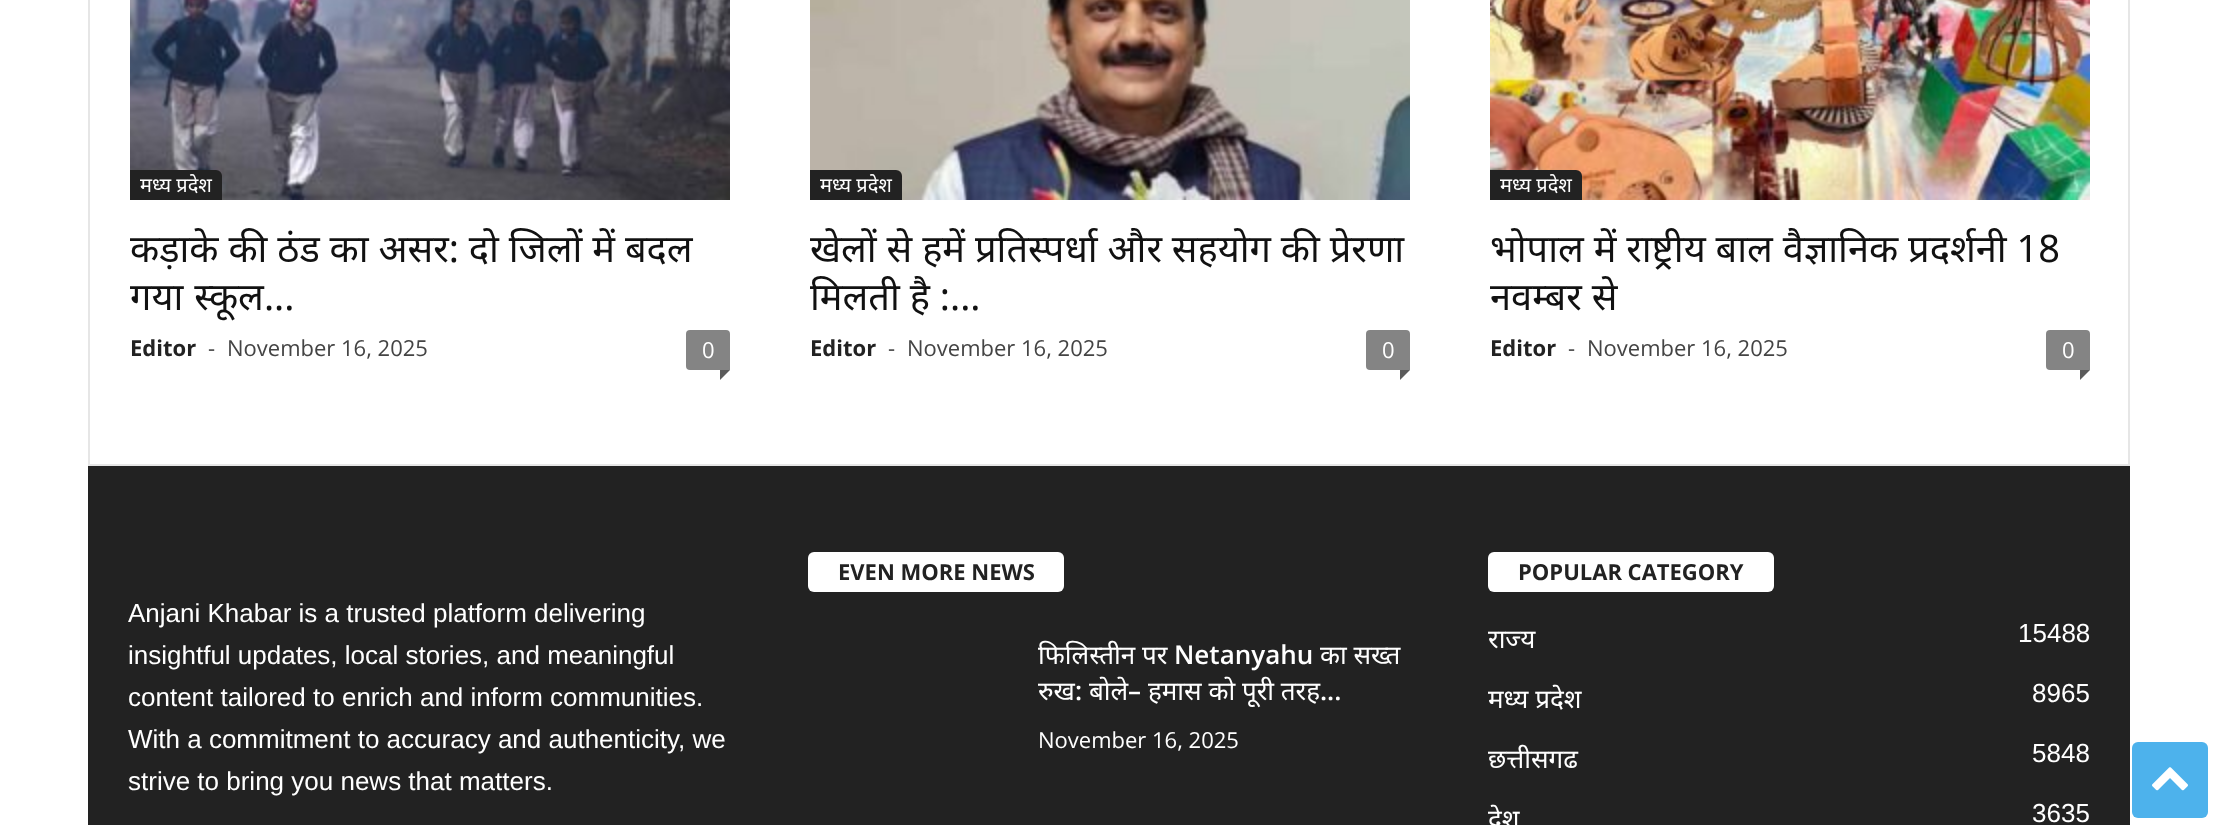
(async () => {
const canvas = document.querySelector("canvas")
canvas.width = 2218
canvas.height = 825
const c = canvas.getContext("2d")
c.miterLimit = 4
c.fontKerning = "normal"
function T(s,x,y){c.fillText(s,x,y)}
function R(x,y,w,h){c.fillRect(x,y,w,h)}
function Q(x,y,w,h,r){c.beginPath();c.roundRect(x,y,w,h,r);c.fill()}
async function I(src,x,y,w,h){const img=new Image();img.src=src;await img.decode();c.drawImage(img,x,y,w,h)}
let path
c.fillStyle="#fff"
R(0,0,2218,825)
c.fillStyle="#e6e6e6"
R(88,464,2042,2)
R(88,0,2,464)
await I("1.png",130,0,600,200)
c.fillStyle="#222"
c.beginPath()
c.roundRect(130,170,92,30,[0,6,0,0])
c.fill()
c.font="20px Noto Sans"
c.fillStyle="#fff"
T("मध्य प्रदेश",140,192)
c.font="38px Noto Sans"
c.fillStyle="#111"
T("कड़ाके की ठंड का असर: दो जिलों में बदल",130,262)
c.wordSpacing="1px"
T("गया स्कूल...",130,310)
c.wordSpacing="0px"
c.font="bold 22px Open Sans"
c.fillStyle="#222"
T("Editor",130,356)
c.font="22px Open Sans"
c.fillStyle="#444"
T("-",208,356)
T("November 16, 2025",227,356)
c.fillStyle="#848484"
c.beginPath()
c.roundRect(686,330,44,40,[4,4,0,4])
c.fill()
c.fillStyle="#fff"
T("0",702,358)
c.fillStyle="#5b5b5b"
path = new Path2D("M720 370h10l-10 10z")
c.fill(path)
await I("2.png",810,0,600,200)
c.fillStyle="#222"
c.beginPath()
c.roundRect(810,170,92,30,[0,6,0,0])
c.fill()
c.font="20px Noto Sans"
c.fillStyle="#fff"
T("मध्य प्रदेश",820,192)
c.font="38px Noto Sans"
c.fillStyle="#111"
T("खेलों से हमें प्रतिस्पर्धा और सहयोग की प्रेरणा",810,262)
T("मिलती है :...",810,310)
c.font="bold 22px Open Sans"
c.fillStyle="#222"
T("Editor",810,356)
c.font="22px Open Sans"
c.fillStyle="#444"
T("-",888,356)
T("November 16, 2025",907,356)
c.fillStyle="#848484"
c.beginPath()
c.roundRect(1366,330,44,40,[4,4,0,4])
c.fill()
c.fillStyle="#fff"
T("0",1382,358)
c.fillStyle="#5b5b5b"
path = new Path2D("M1400 370h10l-10 10z")
c.fill(path)
await I("3.png",1490,0,600,200)
c.fillStyle="#222"
c.beginPath()
c.roundRect(1490,170,92,30,[0,6,0,0])
c.fill()
c.font="20px Noto Sans"
c.fillStyle="#fff"
T("मध्य प्रदेश",1500,192)
c.font="38px Noto Sans"
c.fillStyle="#111"
T("भोपाल में राष्ट्रीय बाल वैज्ञानिक प्रदर्शनी 18",1490,262)
T("नवम्बर से",1490,310)
c.font="bold 22px Open Sans"
c.fillStyle="#222"
T("Editor",1490,356)
c.font="22px Open Sans"
c.fillStyle="#444"
T("-",1568,356)
T("November 16, 2025",1587,356)
c.fillStyle="#848484"
c.beginPath()
c.roundRect(2046,330,44,40,[4,4,0,4])
c.fill()
c.fillStyle="#fff"
T("0",2062,358)
c.fillStyle="#5b5b5b"
path = new Path2D("M2080 370h10l-10 10z")
c.fill(path)
c.fillStyle="#e6e6e6"
R(2128,0,2,464)
c.fillStyle="#222"
R(88,466,2042,359)
c.font="26px Liberation Sans"
c.fillStyle="#fff"
T("Anjani Khabar is a trusted platform delivering",128,622)
T("insightful updates, local stories, and meaningful",128,664)
T("content tailored to enrich and inform communities.",128,706)
T("With a commitment to accuracy and authenticity, we",128,748)
T("strive to bring you news that matters.",128,790)
Q(808,552,256,40,6)
c.font="bold 22px Open Sans"
c.fillStyle="#222"
T("EVEN MORE NEWS",838,580)
c.font="26px Noto Sans"
c.fillStyle="#fff"
T("फिलिस्तीन पर",1038,664)
c.font="600 26px Open Sans"
T("Netanyahu",1174,664)
c.font="26px Noto Sans"
T("का सख्त",1320,664)
T("रुख",1038,700)
c.font="600 26px Open Sans"
T(":",1075,700)
c.font="26px Noto Sans"
T("बोले",1089,700)
c.font="600 26px Open Sans"
T("–",1128,700)
c.font="26px Noto Sans"
T("हमास को पूरी तरह",1148,700)
c.font="600 26px Open Sans"
T("...",1320,700)
c.font="22px Open Sans"
T("November 16, 2025",1038,748)
Q(1488,552,286,40,6)
c.font="bold 22px Open Sans"
c.fillStyle="#222"
T("POPULAR CATEGORY",1518,580)
c.font="26px Noto Sans"
c.fillStyle="#fff"
T("राज्य",1488,648)
c.font="26px Liberation Sans"
T("15488",2018,642)
c.font="26px Noto Sans"
T("मध्य प्रदेश",1488,708)
c.font="26px Liberation Sans"
T("8965",2032,702)
c.font="26px Noto Sans"
T("छत्तीसगढ",1488,768)
c.font="26px Liberation Sans"
T("5848",2032,762)
c.font="26px Noto Sans"
T("देश",1488,828)
c.font="26px Liberation Sans"
T("3635",2032,822)
c.fillStyle="#4db2ec"
Q(2132,742,76,76,6)
await I("4.png",2152,767,36,24)
})()
